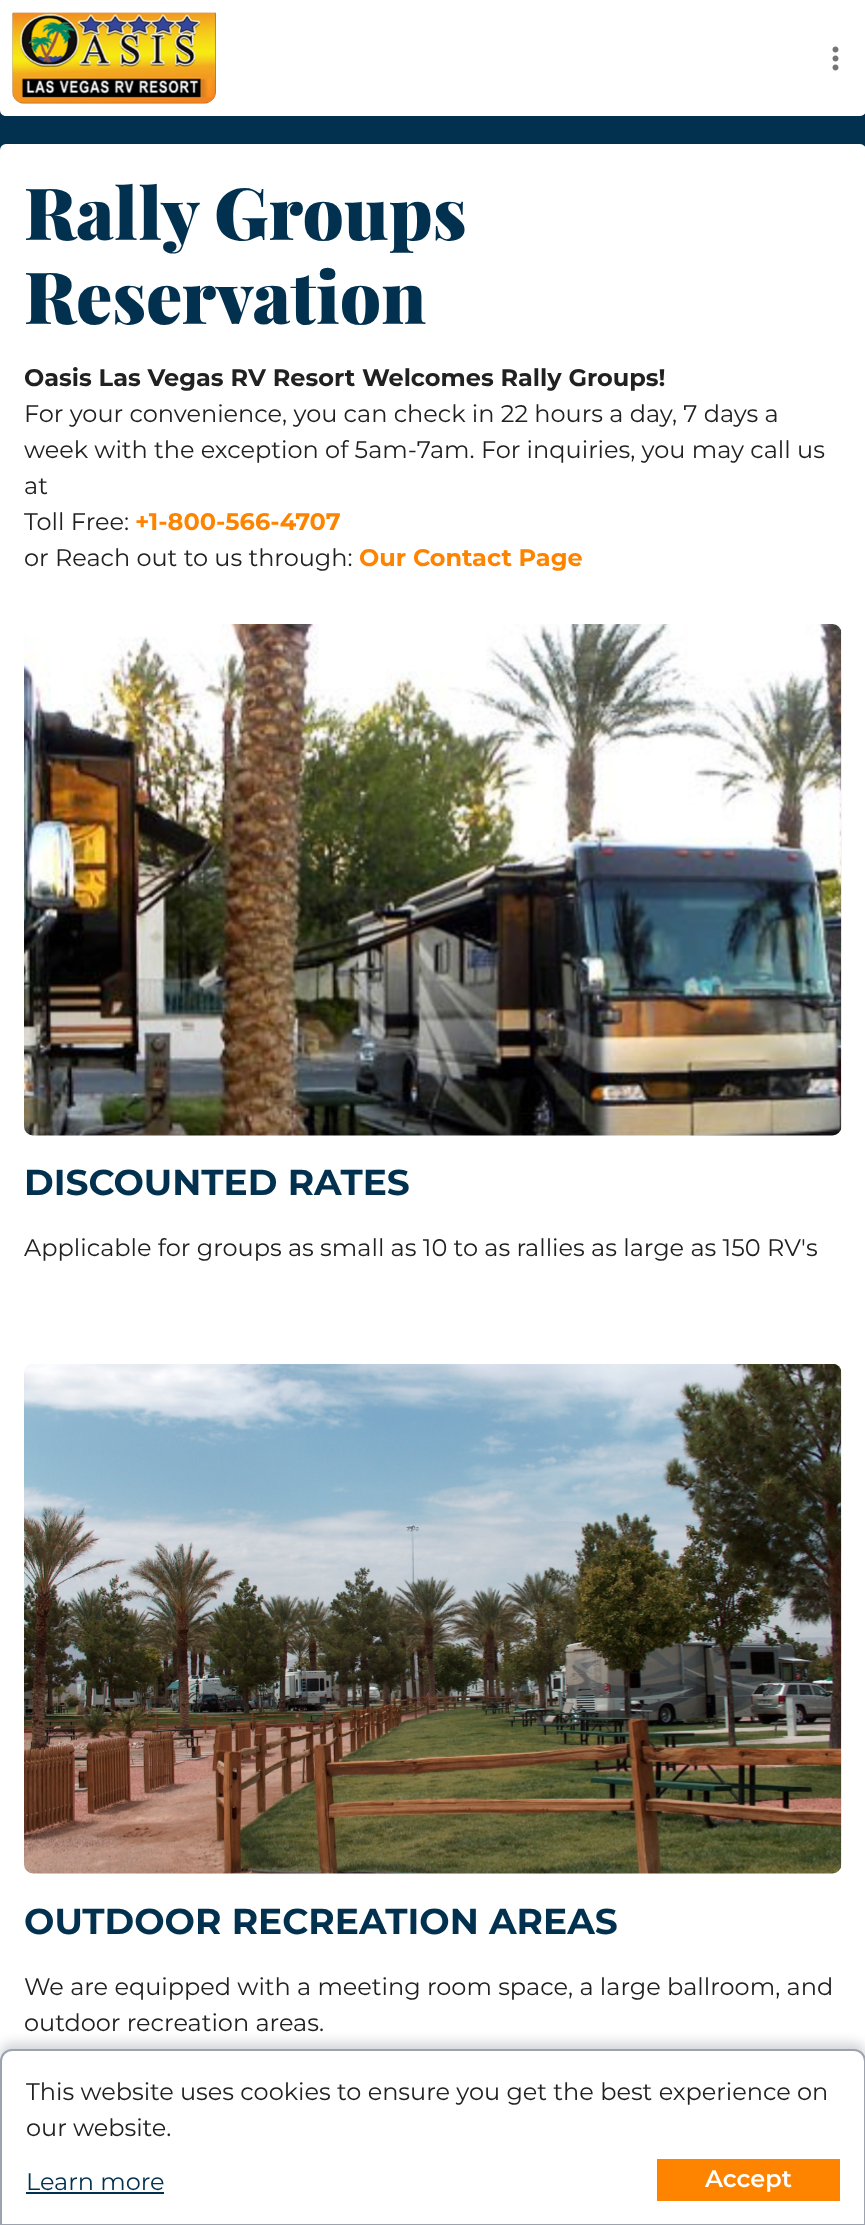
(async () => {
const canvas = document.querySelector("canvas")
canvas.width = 865
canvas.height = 2225
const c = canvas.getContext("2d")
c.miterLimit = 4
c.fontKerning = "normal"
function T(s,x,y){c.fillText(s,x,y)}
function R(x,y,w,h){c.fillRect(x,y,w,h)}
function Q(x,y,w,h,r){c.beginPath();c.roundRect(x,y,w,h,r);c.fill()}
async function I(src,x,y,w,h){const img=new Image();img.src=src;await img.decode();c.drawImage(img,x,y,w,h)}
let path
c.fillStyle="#02314f"
R(0,0,865,2225)
c.fillStyle="#fff"
path = new Path2D("M0 0h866v110c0 3.5-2.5 6-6 6h-854c-3.5 0-6-2.5-6-6z")
c.fill(path)
await I("1.png",12,12,204,92)
await I("2.png",832,46,7,25)
Q(0,144,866,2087,6)
c.font="900 72px Playfair Display"
c.fillStyle="#02314f"
T("Rally Groups",24,240)
T("Reservation",24,324)
c.font="bold 24px Montserrat"
c.fillStyle="#212121"
T("Oasis Las Vegas RV Resort Welcomes Rally Groups!",24,386)
c.font="24px Montserrat"
T("For your convenience, you can check in 22 hours a day, 7 days a",24,422)
T("week with the exception of 5am-7am. For inquiries, you may call us",24,458)
T("at",24,494)
T("Toll Free:",24,530)
c.font="bold 24px Montserrat"
c.fillStyle="#fe8400"
T("+1-800-566-4707",135,530)
c.font="24px Montserrat"
c.fillStyle="#212121"
T("or Reach out to us through:",24,566)
c.font="bold 24px Montserrat"
c.fillStyle="#fe8400"
T("Our Contact Page",359,566)
await I("3.png",24,624,818,512)
c.font="bold 36px Montserrat"
c.fillStyle="#02314f"
T("DISCOUNTED RATES",24,1195)
c.font="24px Montserrat"
c.fillStyle="#212121"
T("Applicable for groups as small as 10 to as rallies as large as 150 RV's",24,1256)
await I("4.png",24,1364,818,510)
c.font="bold 36px Montserrat"
c.fillStyle="#02314f"
T("OUTDOOR RECREATION AREAS",24,1934)
c.font="24px Montserrat"
c.fillStyle="#212121"
T("We are equipped with a meeting room space, a large ballroom, and",24,1995)
T("outdoor recreation areas.",24,2031)
c.fillStyle="#6b72804d"
c.filter="blur(6px)"
c.beginPath()
c.roundRect(0,2043,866,177,12)
c.fill()
c.filter="none"
c.fillStyle="#fff"
path = new Path2D("M12 2050h842c6 0 11 5 11 11v164h-864v-164c0-6 5-11 11-11z")
c.fill(path)
c.strokeStyle="#9ca3af"
c.lineWidth=2
c.stroke(path)
c.fillStyle="#212121"
T("This website uses cookies to ensure you get the best experience on",26,2100)
T("our website.",26,2136)
c.fillStyle="#02314f"
T("Learn more",26,2190)
R(26,2192,138,2)
c.fillStyle="#fe8400"
R(657,2159,183,42)
c.font="600 24px Montserrat"
c.fillStyle="#fff"
T("Accept",705,2187)
})()
